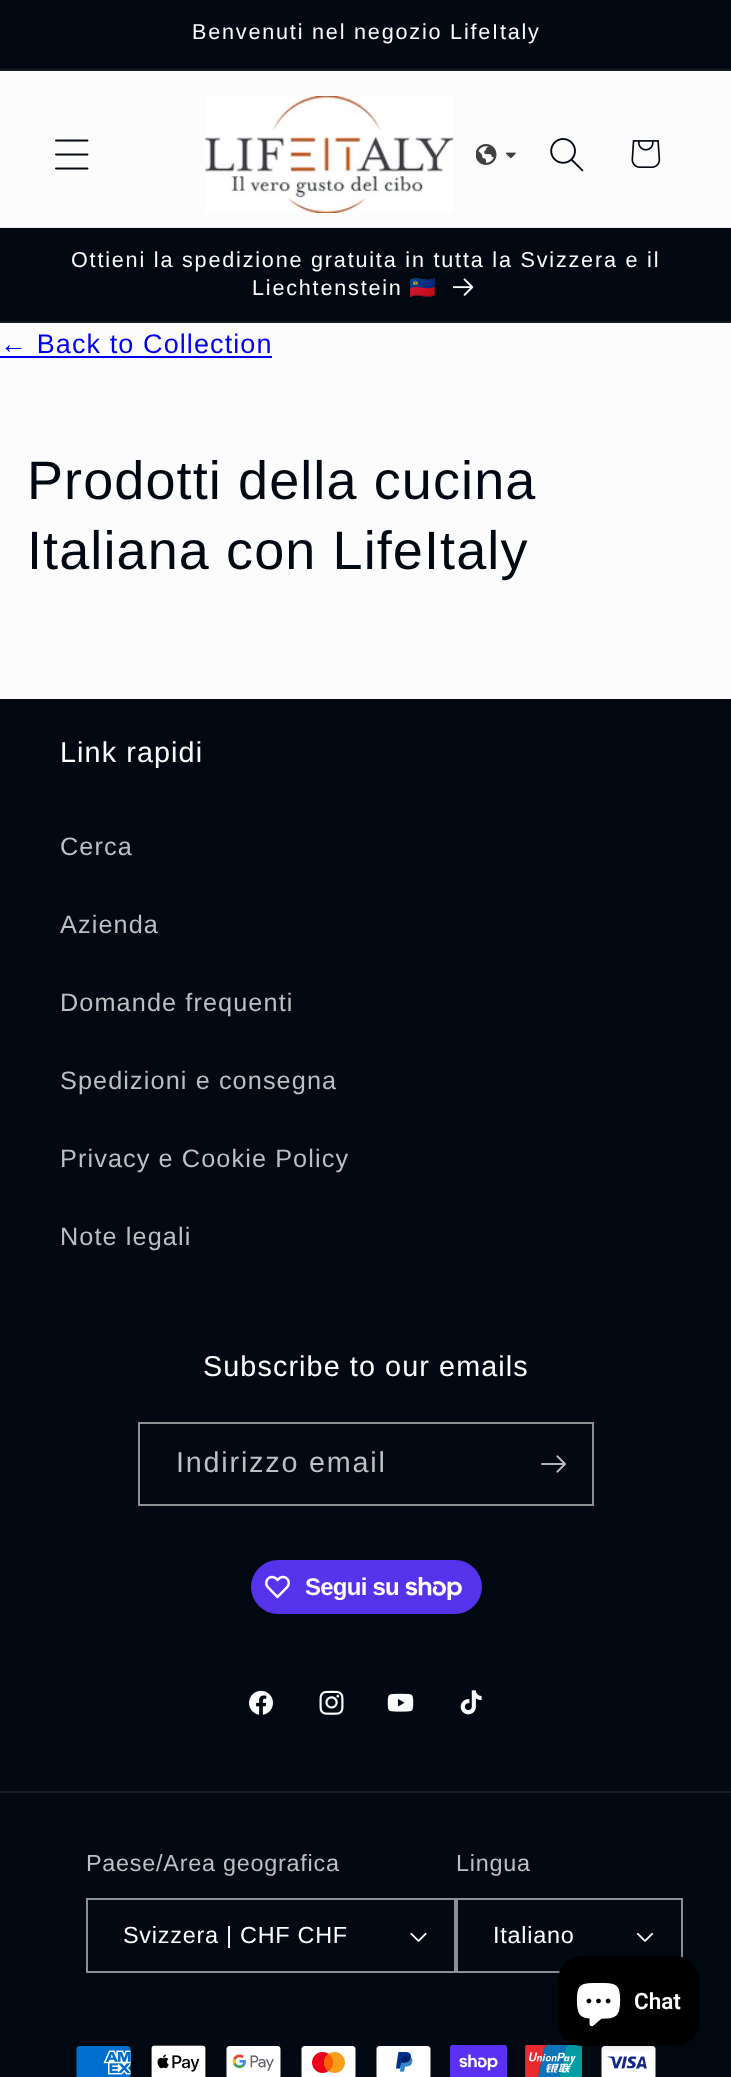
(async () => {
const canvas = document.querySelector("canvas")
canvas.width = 731
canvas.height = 2077
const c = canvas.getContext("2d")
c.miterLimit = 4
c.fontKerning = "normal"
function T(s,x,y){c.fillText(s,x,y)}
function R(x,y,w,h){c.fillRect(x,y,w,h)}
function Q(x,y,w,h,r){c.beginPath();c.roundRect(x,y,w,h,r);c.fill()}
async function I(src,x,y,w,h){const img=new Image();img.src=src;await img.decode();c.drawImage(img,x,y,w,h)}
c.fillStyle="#fcfcfc"
R(0,0,731,2077)
c.fillStyle="#e8e9e9"
R(0,227,731,1)
c.fillStyle="#020912"
R(0,0,731,69)
c.fillStyle="#161c25"
R(0,69,731,2)
c.letterSpacing="1.8px"
c.font="21.6px Liberation Sans"
c.fillStyle="#fcfcfc"
T("Benvenuti nel negozio LifeItaly",192,39)
await I("1.png",55,139,34,31)
await I("2.png",205,96,248,117)
await I("3.png",476,144,21,21)
await I("4.png",506,152,10,7)
await I("5.png",550,138,34,34)
await I("6.png",631,140,30,28)
c.fillStyle="#020912"
R(0,228,731,93)
c.fillStyle="#161c25"
R(0,321,731,2)
c.fillStyle="#fcfcfc"
T("Ottieni la spedizione gratuita in tutta la Svizzera e il",71,267)
T("Liechtenstein",252,295)
c.font="21.6px Noto Color Emoji"
T("🇱🇮",409,295)
await I("7.png",453,278,21,18)
c.letterSpacing="1.1px"
c.font="27px Liberation Sans"
c.fillStyle="#00e"
T("← Back to Collection",0,353)
R(0,356,272,2)
c.font="54px Liberation Sans"
c.fillStyle="#020912"
T("Prodotti della cucina",27,499)
T("Italiana con LifeItaly",27,569)
R(0,699,731,1378)
c.font="28.75px Liberation Sans"
c.fillStyle="#fcfcfc"
T("Link rapidi",60,762)
c.font="25.25px Liberation Sans"
c.fillStyle="#bebfc2"
T("Cerca",60,855)
T("Azienda",60,933)
T("Domande frequenti",60,1011)
T("Spedizioni e consegna",60,1089)
T("Privacy e Cookie Policy",60,1167)
T("Note legali",60,1245)
c.font="28.75px Liberation Sans"
c.fillStyle="#fcfcfc"
T("Subscribe to our emails",203,1376)
c.strokeStyle="#8c8f93"
c.lineWidth=2
c.strokeRect(139,1423,454,82)
c.letterSpacing="1.8px"
c.fillStyle="#bebfc2"
T("Indirizzo email",176,1472)
await I("8.png",541,1455,25,18)
c.fillStyle="#5433eb"
Q(251,1560,231,54,27)
await I("9.png",265,1575,25,24)
c.letterSpacing="-0.75px"
c.font="bold 24px Liberation Sans"
c.fillStyle="#fcfcfc"
T("Segui su",305,1595)
await I("10.png",405,1577,57,23)
await I("11.png",249,1690,24,25)
await I("12.png",319,1690,25,25)
await I("13.png",387,1693,27,19)
await I("14.png",460,1690,22,25)
c.fillStyle="#161c25"
R(0,1791,731,2)
c.letterSpacing="0.75px"
c.font="23.4px Liberation Sans"
c.fillStyle="#bebfc2"
T("Paese/Area geografica",86,1871)
await I("15.png",410,1932,17,10)
c.strokeRect(87,1899,368,73)
c.fillStyle="#fcfcfc"
T("Svizzera | CHF CHF",123,1943)
c.fillStyle="#bebfc2"
T("Lingua",456,1871)
await I("16.png",636,1932,17,10)
c.strokeRect(457,1899,225,73)
c.fillStyle="#fcfcfc"
T("Italiano",493,1943)
await I("17.png",76,2046,55,31)
await I("18.png",150,2045,57,32)
await I("19.png",226,2046,55,31)
await I("20.png",301,2046,55,31)
await I("21.png",376,2046,55,31)
await I("22.png",450,2045,57,32)
await I("23.png",525,2045,57,32)
await I("24.png",601,2046,55,31)
c.fillStyle="#00000026"
c.filter="blur(4px)"
c.beginPath()
c.roundRect(558,1956,141,90,24)
c.fill()
c.filter="none"
c.fillStyle="#000"
Q(558,1956,141,90,24)
await I("25.png",576,1983,45,44)
c.letterSpacing="0px"
c.font="600 22.5px Roboto"
c.fillStyle="#fcfcfc"
T("Chat",634,2009)
})()
